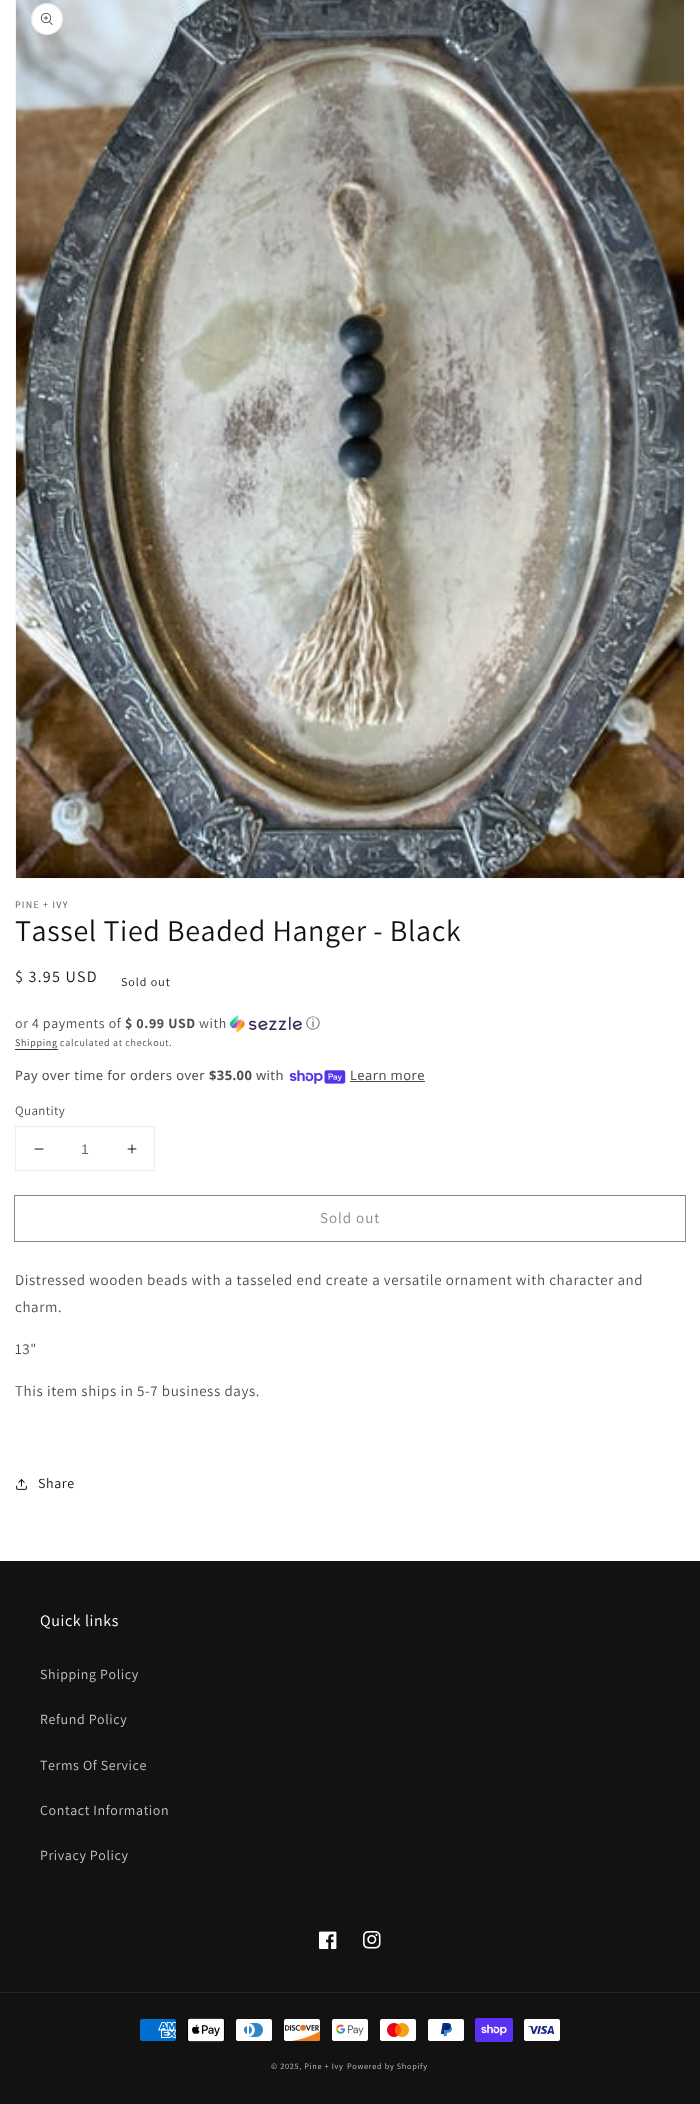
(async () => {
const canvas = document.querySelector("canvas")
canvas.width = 700
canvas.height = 2104
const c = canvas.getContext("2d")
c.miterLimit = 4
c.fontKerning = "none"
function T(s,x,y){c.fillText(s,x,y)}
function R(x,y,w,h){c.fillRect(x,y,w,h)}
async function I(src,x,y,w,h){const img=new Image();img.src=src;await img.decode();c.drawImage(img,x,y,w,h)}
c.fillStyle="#fff"
R(0,0,700,2104)
c.strokeStyle="#f6f6f6"
c.strokeRect(15.5,-.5,669,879)
await I("1.png",16,0,668,878)
c.beginPath()
c.arc(47,19,16,0,7)
c.fill()
c.beginPath()
c.arc(47,19,15.5,0,7)
c.strokeStyle="#1212121a"
c.stroke()
await I("2.png",41,13,12,12)
c.letterSpacing="1.25px"
c.font="10px Assistant"
c.fillStyle="#4d4d4d"
T("PINE + IVY",15,908)
c.letterSpacing="0.6px"
c.font="30px Assistant"
c.fillStyle="#121212"
T("Tassel Tied Beaded Hanger - Black",15,941)
c.letterSpacing="1.25px"
c.font="16px Assistant"
T("$ 3.95 USD",15,982)
c.letterSpacing="1px"
c.font="12px Assistant"
T("Sold out",121,986)
c.letterSpacing="0.6px"
c.font="14px Assistant"
c.fillStyle="#4d4d4d"
T("or 4 payments of",15,1028)
c.font="bold 14px Assistant"
T("$ 0.99 USD",125,1028)
c.font="14px Assistant"
T("with",199,1028)
await I("3.png",230,1015,72,18)
c.font="500 14px WenQuanYi Zen Hei"
T("ⓘ",306,1028)
c.letterSpacing="0.7px"
c.font="10px Assistant"
c.fillStyle="#363636"
T("Shipping",15,1046)
R(15,1049,43,1)
c.fillStyle="#4d4d4d"
T("calculated at checkout.",60,1046)
c.letterSpacing="0.4px"
c.font="13px Noto Sans"
T("Pay over time for orders over",15,1080)
c.font="bold 13px Noto Sans"
T("$35.00",209,1080)
c.font="13px Noto Sans"
T("with",256,1080)
await I("4.png",289,1070,57,14)
T("Learn more",350,1080)
R(350,1081,75,1)
c.font="13px Assistant"
T("Quantity",15,1115)
c.strokeStyle="#ececec"
c.strokeRect(15.5,1126.5,139,44)
await I("5.png",34,1148,10,2)
c.letterSpacing="0px"
c.font="14px Liberation Sans"
c.fillStyle="#686868"
T("1",81,1154)
await I("6.png",127,1144,10,10)
c.strokeStyle="#898989"
c.strokeRect(14.5,1195.5,671,46)
c.letterSpacing="1px"
c.font="15px Assistant"
c.fillStyle="#898989"
T("Sold out",320,1223)
c.letterSpacing="0.6px"
c.fillStyle="#4d4d4d"
T("Distressed wooden beads with a tasseled end create a versatile ornament with character and",15,1285)
c.wordSpacing="-1px"
T("charm. ",15,1312)
c.wordSpacing="0px"
T("13\"",15,1354)
T("This item ships in 5-7 business days.",15,1396)
await I("7.png",16,1479,11,11)
c.font="14px Assistant"
c.fillStyle="#121212"
T("Share",38,1488)
R(0,1561,700,543)
c.font="16px Assistant"
c.fillStyle="#fff"
T("Quick links",40,1626)
c.font="14px Assistant"
c.fillStyle="#c4c4c4"
T("Shipping Policy",40,1679)
T("Refund Policy",40,1724)
T("Terms Of Service",40,1770)
T("Contact Information",40,1815)
T("Privacy Policy",40,1860)
await I("8.png",319,1931,18,18)
await I("9.png",363,1931,18,18)
c.fillStyle="#252525"
R(0,1992,700,1)
await I("10.png",140,2019,36,22)
await I("11.png",187,2018,38,24)
await I("12.png",236,2019,36,22)
await I("13.png",284,2019,36,22)
await I("14.png",332,2019,36,22)
await I("15.png",380,2019,36,22)
await I("16.png",428,2019,36,22)
await I("17.png",475,2018,38,24)
await I("18.png",524,2019,36,22)
c.letterSpacing="0.7px"
c.font="8.25px Assistant"
c.fillStyle="#c4c4c4"
T("© 2025, Pine + Ivy",271,2069)
T("Powered by Shopify",347,2069)
})()
